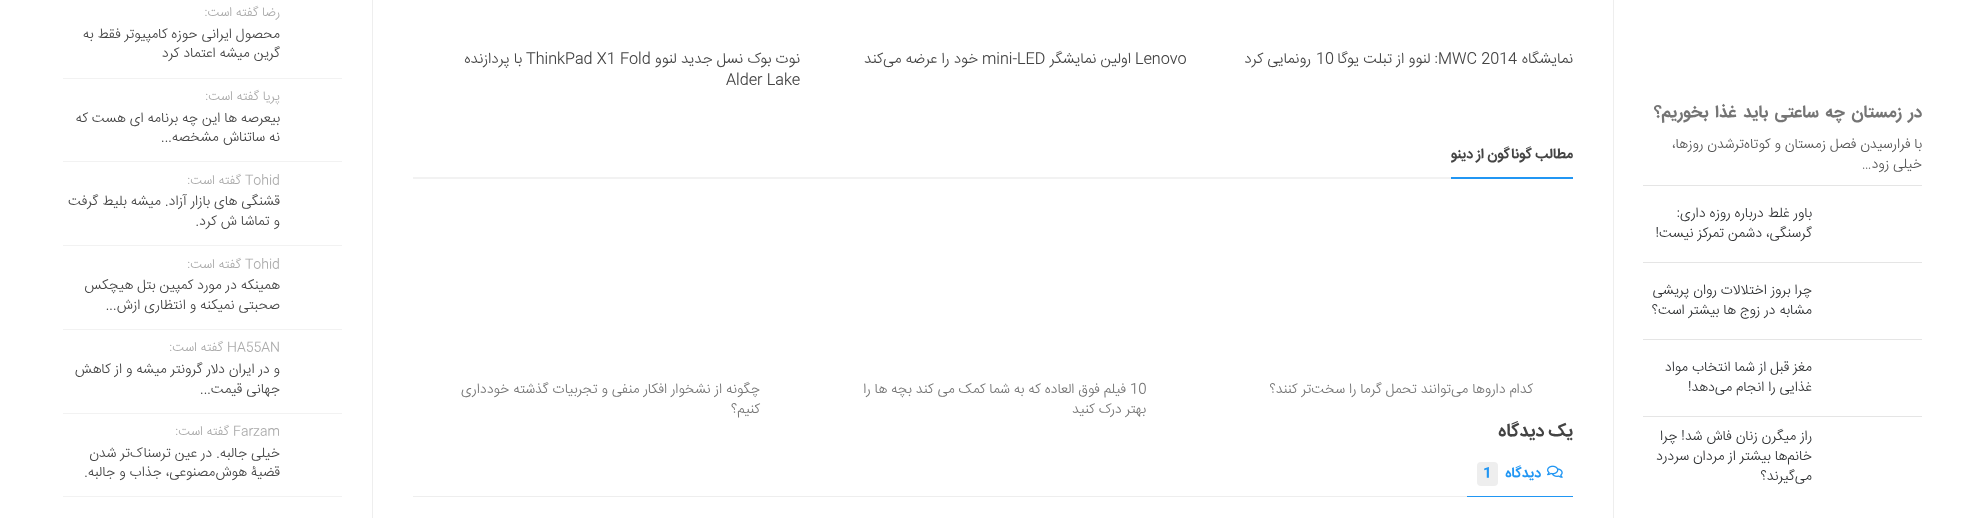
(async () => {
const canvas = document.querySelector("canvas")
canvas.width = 1986
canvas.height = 518
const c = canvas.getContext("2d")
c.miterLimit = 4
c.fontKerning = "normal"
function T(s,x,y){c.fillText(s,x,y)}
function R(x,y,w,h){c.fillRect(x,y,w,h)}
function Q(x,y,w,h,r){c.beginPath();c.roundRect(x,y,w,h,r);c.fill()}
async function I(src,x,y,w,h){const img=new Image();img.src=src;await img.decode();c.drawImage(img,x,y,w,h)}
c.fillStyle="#fff"
R(0,0,1986,518)
c.fillStyle="#eee"
R(1613,0,1,518)
c.letterSpacing="-0.5px"
c.wordSpacing="3px"
c.direction="rtl"
c.font="bold 17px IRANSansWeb"
c.fillStyle="#757575"
T("در زمستان چه ساعتی باید غذا بخوریم؟",1922,117)
c.letterSpacing="0px"
c.wordSpacing="0px"
c.font="300 14px IRANSansWeb"
c.fillStyle="#555"
T("با فرارسیدن فصل زمستان و کوتاه‌ترشدن روزها،",1922,148)
T("خیلی زود…",1922,168)
c.fillStyle="#e5e5e5"
R(1643,185,279,1)
c.fillStyle="#2f3133"
T("باور غلط درباره‌ روزه‌ داری:",1812,217)
T("گرسنگی، دشمن تمرکز نیست!",1812,237)
c.fillStyle="#e5e5e5"
R(1643,262,279,1)
c.fillStyle="#2f3133"
T("چرا بروز اختلالات روان‌ پریشی",1812,294)
T("مشابه در زوج‌ ها بیشتر است؟",1812,314)
c.fillStyle="#e5e5e5"
R(1643,339,279,1)
c.fillStyle="#2f3133"
T("مغز قبل از شما انتخاب مواد",1812,371)
T("غذایی را انجام می‌دهد!",1812,391)
c.fillStyle="#e5e5e5"
R(1643,416,279,1)
c.fillStyle="#2f3133"
T("راز میگرن زنان فاش شد! چرا",1812,440)
T("خانم‌ها بیشتر از مردان سردرد",1812,460)
T("می‌گیرند؟",1812,480)
c.font="300 15px IRANSansWeb"
c.fillStyle="#444"
T("نمایشگاه",1573,63)
c.direction="ltr"
T("MWC 2014",1438,63)
c.direction="rtl"
T(": لنوو از تبلت یوگا",1438,63)
c.direction="ltr"
T("10",1316,63)
c.direction="rtl"
T("رونمایی کرد",1311,63)
c.direction="ltr"
T("Lenovo",1135,63)
c.direction="rtl"
T("اولین نمایشگر",1131,63)
c.direction="ltr"
T("mini-LED",982,63)
c.direction="rtl"
T("خود را عرضه می‌کند",978,63)
T("نوت بوک نسل جدید لنوو",800,63)
c.direction="ltr"
T("ThinkPad X1 Fold",526,63)
c.direction="rtl"
T("با پردازنده",522,63)
c.direction="ltr"
T("Alder Lake",726,84)
c.fillStyle="#f2f2f2"
R(413,177,1038,2)
c.fillStyle="#2196f3"
R(1451,177,122,2)
c.direction="rtl"
c.font="bold 14px IRANSansWeb"
c.fillStyle="#444"
T("مطالب گوناگون از دینو",1573,158)
c.font="300 14px IRANSansWeb"
c.fillStyle="#757575"
T("کدام داروها می‌توانند تحمل گرما را سخت‌تر کنند؟",1533,393)
c.direction="ltr"
T("10",1130,393)
c.direction="rtl"
T("فیلم فوق‌ العاده که به شما کمک می کند بچه ها را",1126,393)
T("بهتر درک کنید",1146,413)
T("چگونه از نشخوار افکار منفی و تجربیات گذشته خودداری",760,393)
T("کنیم؟",760,413)
c.font="bold 18px IRANSansWeb"
c.fillStyle="#444"
T("یک دیدگاه",1573,436)
c.fillStyle="#eee"
R(413,496,1054,1)
c.fillStyle="#2196f3"
R(1467,496,106,1)
await I("1.png",1547,465,16,13)
c.font="bold 14px IRANSansWeb"
T("دیدگاه",1541,477)
c.fillStyle="#eee"
Q(1477,462,21,24,4)
c.direction="ltr"
c.fillStyle="#2196f3"
T("1",1483,477)
c.fillStyle="#eee"
R(372,0,1,518)
c.fillStyle="#f2f2f2"
R(63,78,279,1)
c.direction="rtl"
c.font="300 13px IRANSansWeb"
c.fillStyle="#aaa"
T("رضا گفته است:",280,16)
c.font="300 14px IRANSansWeb"
c.fillStyle="#444"
T("محصول ایرانی حوزه کامپیوتر فقط به",280,38)
T("گرین میشه اعتماد کرد",280,57)
c.fillStyle="#f2f2f2"
R(63,161,279,1)
c.font="300 13px IRANSansWeb"
c.fillStyle="#aaa"
T("پریا گفته است:",280,100)
c.font="300 14px IRANSansWeb"
c.fillStyle="#444"
T("بیعرصه ها این چه برنامه ای هست که",280,122)
T("نه ساتناش مشخصه...",280,141)
c.fillStyle="#f2f2f2"
R(63,245,279,1)
c.direction="ltr"
c.font="300 13px IRANSansWeb"
c.fillStyle="#aaa"
T("Tohid",245,184)
c.direction="rtl"
T("گفته است:",241,184)
c.font="300 14px IRANSansWeb"
c.fillStyle="#444"
T("قشنگی های بازار آزاد. میشه بلیط گرفت",280,205)
T("و تماشا ش کرد.",280,225)
c.fillStyle="#f2f2f2"
R(63,329,279,1)
c.direction="ltr"
c.font="300 13px IRANSansWeb"
c.fillStyle="#aaa"
T("Tohid",245,268)
c.direction="rtl"
T("گفته است:",241,268)
c.font="300 14px IRANSansWeb"
c.fillStyle="#444"
T("همینکه در مورد کمپین بتل هیچکس",280,289)
T("صحبتی نمیکنه و انتظاری ازش...",280,309)
c.fillStyle="#f2f2f2"
R(63,413,279,1)
c.direction="ltr"
c.font="300 13px IRANSansWeb"
c.fillStyle="#aaa"
T("HA55AN",227,351)
c.direction="rtl"
T("گفته است:",223,351)
c.font="300 14px IRANSansWeb"
c.fillStyle="#444"
T("و در ایران دلار گرونتر میشه و از کاهش",280,373)
T("جهانی قیمت...",280,393)
c.fillStyle="#f2f2f2"
R(63,496,279,1)
c.direction="ltr"
c.font="300 13px IRANSansWeb"
c.fillStyle="#aaa"
T("Farzam",233,435)
c.direction="rtl"
T("گفته است:",229,435)
c.font="300 14px IRANSansWeb"
c.fillStyle="#444"
T("خیلی جالبه. در عین ترسناک‌تر شدن",280,457)
T("قضیۀ هوش‌مصنوعی، جذاب و جالبه.",280,476)
})()
